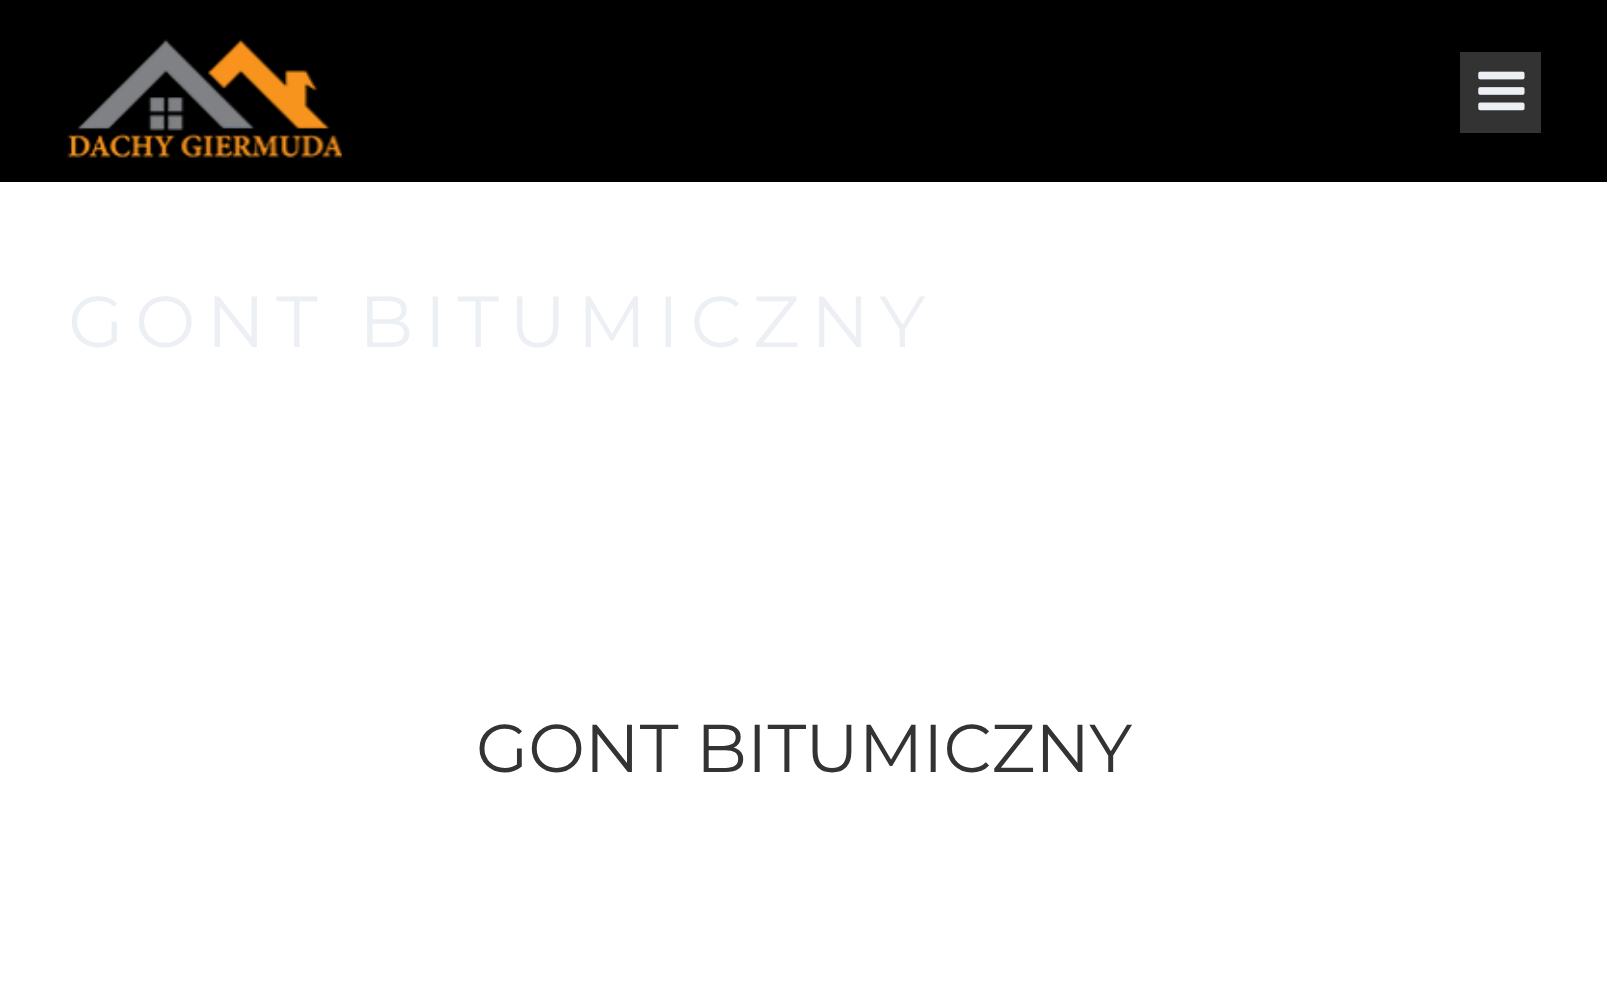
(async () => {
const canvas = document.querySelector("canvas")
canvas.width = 1607
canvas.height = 996
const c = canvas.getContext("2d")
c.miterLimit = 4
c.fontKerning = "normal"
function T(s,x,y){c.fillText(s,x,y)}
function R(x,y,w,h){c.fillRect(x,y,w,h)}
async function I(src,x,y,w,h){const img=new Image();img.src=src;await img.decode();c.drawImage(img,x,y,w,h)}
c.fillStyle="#fff"
R(0,0,1607,996)
c.fillStyle="#000"
R(0,0,1607,182)
await I("1.png",67,39,275,119)
c.fillStyle="#333"
R(1460,52,81,81)
await I("2.png",1478,71,47,40)
c.letterSpacing="11.25px"
c.font="72px Montserrat"
c.fillStyle="#eceff3"
T("GONT BITUMICZNY",68,347)
c.letterSpacing="0px"
c.font="67.5px Montserrat"
c.fillStyle="#333"
T("GONT BITUMICZNY",476,772)
})()
